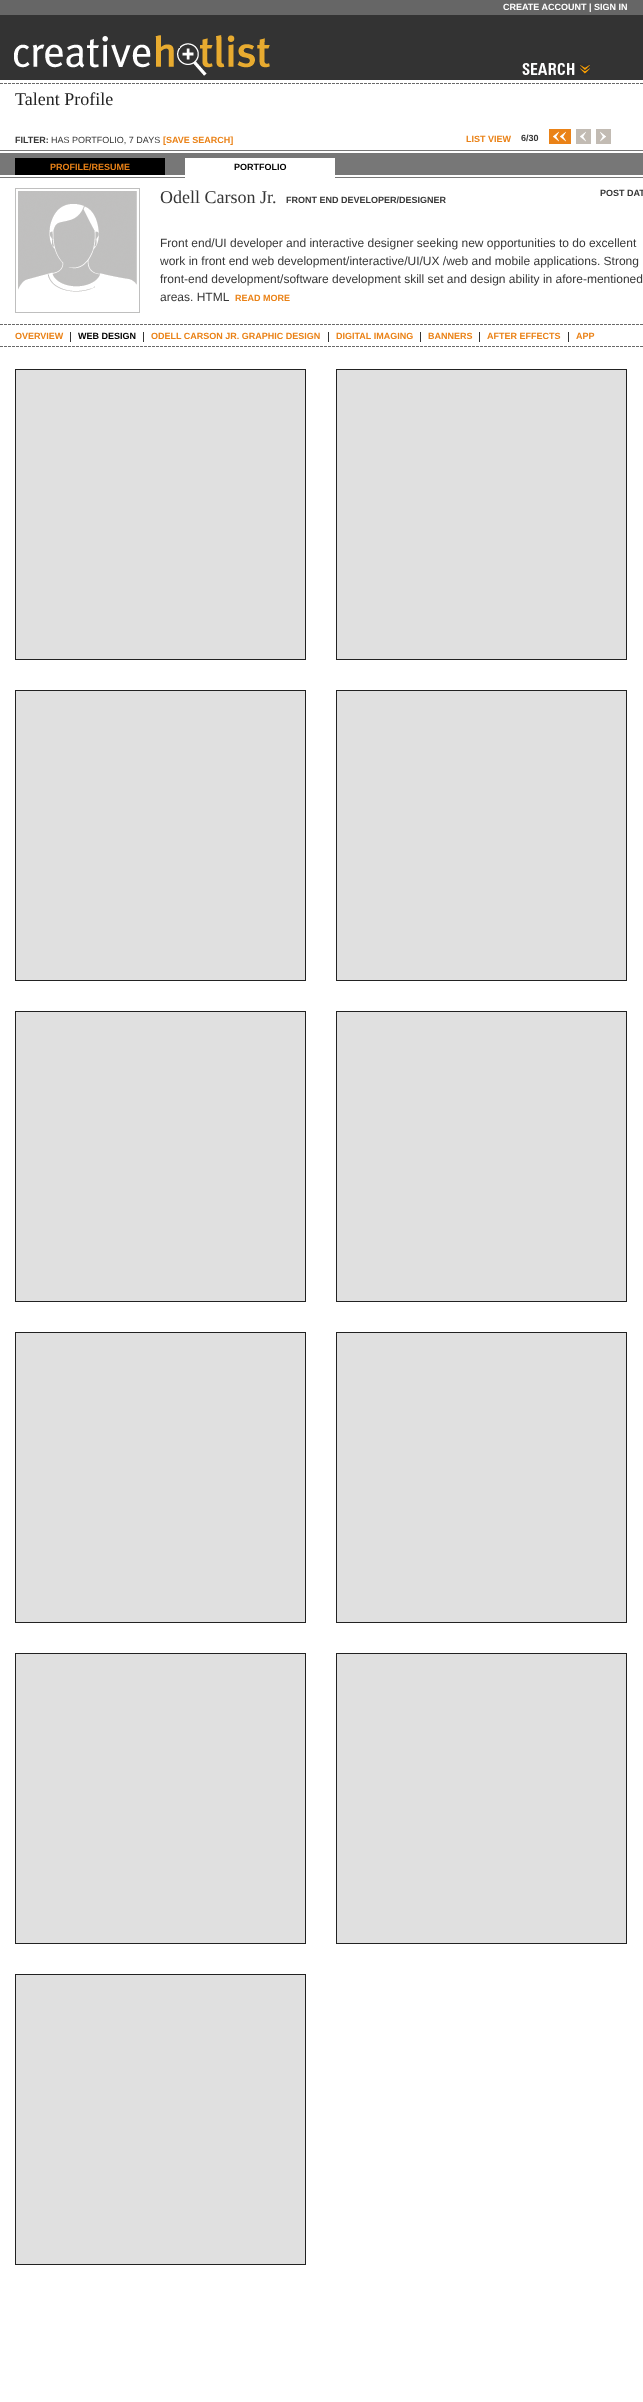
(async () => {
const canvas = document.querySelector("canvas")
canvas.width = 643
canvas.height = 2402
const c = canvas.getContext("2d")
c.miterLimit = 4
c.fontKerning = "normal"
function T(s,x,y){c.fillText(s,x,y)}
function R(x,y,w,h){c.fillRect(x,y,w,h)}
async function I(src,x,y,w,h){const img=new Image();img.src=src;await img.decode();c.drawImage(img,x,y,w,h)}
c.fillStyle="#fff"
R(0,0,643,2402)
c.fillStyle="#666"
R(0,0,643,15)
c.font="bold 9px Liberation Sans"
c.fillStyle="#fff"
T("CREATE ACCOUNT | SIGN IN",503,10)
c.fillStyle="#333"
R(0,15,643,65)
await I("1.png",14,35,256,41)
await I("2.png",522,63,68,12)
await I("3.png",0,83,643,1)
c.font="18px Liberation Serif"
c.fillStyle="#222"
T("Talent Profile",15,105)
c.font="bold 9px Liberation Sans"
c.fillStyle="#363636"
T("FILTER:",15,143)
c.font="9px Liberation Sans"
T("HAS PORTFOLIO, 7 DAYS",51,143)
c.font="bold 9px Liberation Sans"
c.fillStyle="#ea8217"
T("[SAVE SEARCH]",163,143)
T("LIST VIEW",466,142)
c.fillStyle="#363636"
T("6/30",521,141)
await I("4.png",549,129,22,15)
await I("5.png",576,129,15,15)
await I("6.png",596,129,15,15)
c.fillStyle="#777"
R(0,150,643,1)
R(0,177,643,1)
R(0,153,643,22)
c.fillStyle="#000"
R(15,158,150,17)
c.fillStyle="#ea8217"
T("PROFILE/RESUME",50,170)
c.fillStyle="#fff"
R(185,158,150,20)
c.fillStyle="#000"
T("PORTFOLIO",234,170)
await I("7.png",15,188,125,125)
c.fillStyle="#363636"
T("POST DAT",600,196)
c.font="18px Liberation Serif"
T("Odell Carson Jr.",160,203)
c.font="bold 9px Liberation Sans"
T("FRONT END DEVELOPER/DESIGNER",286,203)
c.font="12px Liberation Sans"
T("Front end/UI developer and interactive designer seeking new opportunities to do excellent",160,247)
T("work in front end web development/interactive/UI/UX /web and mobile applications. Strong",160,265)
T("front-end development/software development skill set and design ability in afore-mentioned",160,283)
T("areas. HTML",160,301)
c.font="bold 9px Liberation Sans"
c.fillStyle="#ea8217"
T("READ MORE",235,301)
await I("3.png",0,324,643,1)
T("OVERVIEW",15,339)
c.fillStyle="#333"
R(70,332,1,10)
c.fillStyle="#000"
T("WEB DESIGN",78,339)
c.fillStyle="#333"
R(143,332,1,10)
c.fillStyle="#ea8217"
T("ODELL CARSON JR. GRAPHIC DESIGN",151,339)
c.fillStyle="#333"
R(328,332,1,10)
c.fillStyle="#ea8217"
T("DIGITAL IMAGING",336,339)
c.fillStyle="#333"
R(420,332,1,10)
c.fillStyle="#ea8217"
T("BANNERS",428,339)
c.fillStyle="#333"
R(479,332,1,10)
c.fillStyle="#ea8217"
T("AFTER EFFECTS",487,339)
c.fillStyle="#333"
R(568,332,1,10)
c.fillStyle="#ea8217"
T("APP",576,339)
await I("3.png",0,346,643,1)
c.strokeStyle="#222"
c.strokeRect(15.5,369.5,290,290)
c.fillStyle="#e0e0e0"
R(16,370,289,289)
c.strokeRect(336.5,369.5,290,290)
R(337,370,289,289)
c.strokeRect(15.5,690.5,290,290)
R(16,691,289,289)
c.strokeRect(336.5,690.5,290,290)
R(337,691,289,289)
c.strokeRect(15.5,1011.5,290,290)
R(16,1012,289,289)
c.strokeRect(336.5,1011.5,290,290)
R(337,1012,289,289)
c.strokeRect(15.5,1332.5,290,290)
R(16,1333,289,289)
c.strokeRect(336.5,1332.5,290,290)
R(337,1333,289,289)
c.strokeRect(15.5,1653.5,290,290)
R(16,1654,289,289)
c.strokeRect(336.5,1653.5,290,290)
R(337,1654,289,289)
c.strokeRect(15.5,1974.5,290,290)
R(16,1975,289,289)
})()
